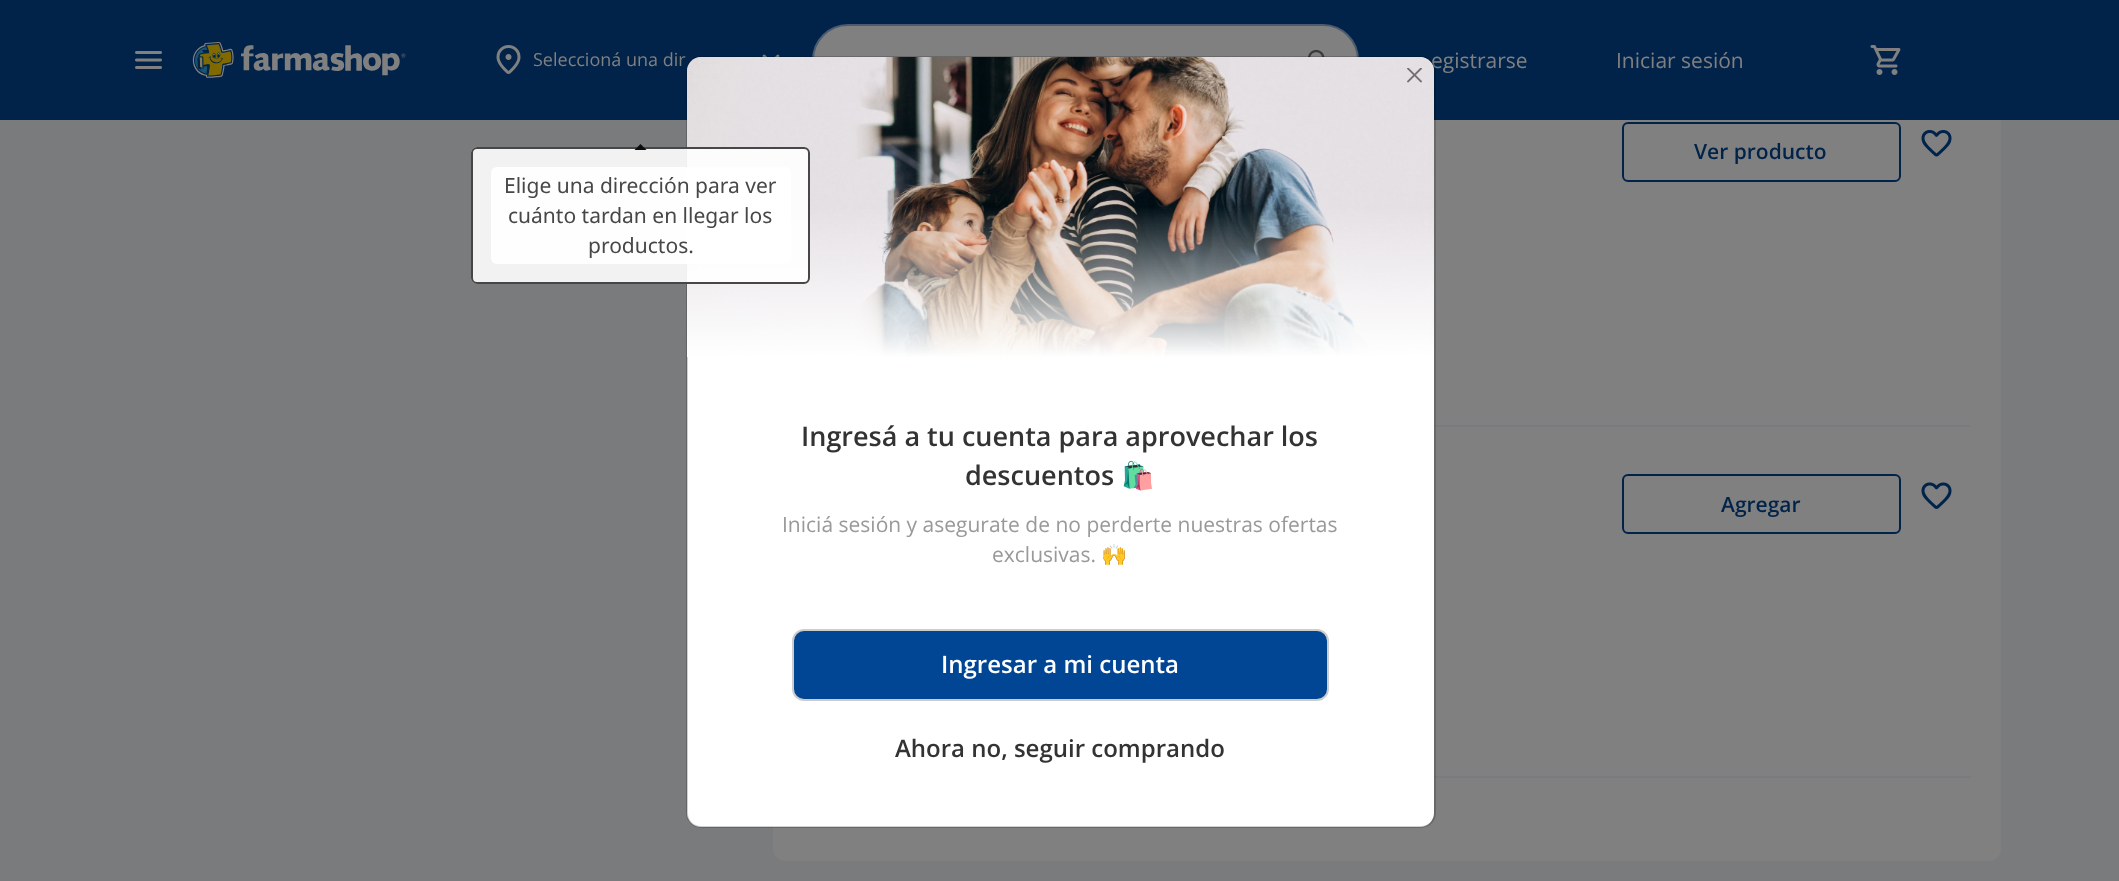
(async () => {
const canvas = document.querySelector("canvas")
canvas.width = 2119
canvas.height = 881
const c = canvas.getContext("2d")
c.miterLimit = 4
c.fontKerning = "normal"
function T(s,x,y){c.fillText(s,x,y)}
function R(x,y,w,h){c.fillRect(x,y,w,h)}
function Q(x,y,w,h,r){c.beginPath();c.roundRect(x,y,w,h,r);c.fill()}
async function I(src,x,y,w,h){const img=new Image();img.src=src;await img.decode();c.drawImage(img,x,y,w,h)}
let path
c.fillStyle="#797b7d"
R(0,0,2119,881)
c.fillStyle="#808080"
Q(773,-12,1228,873,12)
c.fillStyle="#01234a"
R(0,0,2119,120)
await I("1.png",135,51,27,18)
await I("2.png",192,42,214,36)
await I("3.png",496,45,25,29)
c.font="18px Open Sans"
c.fillStyle="#808080"
T("Seleccioná una dir",533,66)
await I("4.png",762,54,18,3)
c.beginPath()
c.roundRect(813,25,545,70,35)
c.fill()
c.strokeStyle="#4d5b6e"
c.lineWidth=2
c.stroke()
await I("5.png",1308,49,17,8)
c.font="21px Open Sans"
T("egistrarse",1431,68)
T("Iniciar sesión",1616,68)
await I("6.png",1870,45,31,30)
c.fillStyle="#797b7e"
R(1434,425,537,2)
c.beginPath()
c.roundRect(1623,123,277,58,5)
c.strokeStyle="#01234a"
c.stroke()
c.font="600 21px Open Sans"
c.fillStyle="#01234a"
T("Ver producto",1694,159)
await I("7.png",1921,130,31,27)
c.fillStyle="#797b7e"
R(1434,776,537,2)
c.beginPath()
c.roundRect(1623,475,277,58,5)
c.stroke()
c.fillStyle="#01234a"
T("Agregar",1721,512)
await I("8.png",1921,482,31,27)
c.fillStyle="#fff"
Q(687,57,747,770,14)
c.beginPath()
c.roundRect(687,57,748,770,14)
c.strokeStyle="#0000002e"
c.stroke()
await I("9.png",687,57,747,300)
await I("10.png",1407,68,15,15)
c.font="600 27px Open Sans"
c.fillStyle="#333"
T("Ingresá a tu cuenta para aprovechar los",801,446)
T("descuentos",965,485)
c.font="bold 27px Noto Color Emoji"
T("🛍️",1121,485)
c.font="21px Open Sans"
c.fillStyle="#999"
T("Iniciá sesión y asegurate de no perderte nuestras ofertas",782,532)
T("exclusivas.",992,562)
c.font="21px Noto Color Emoji"
T("🙌",1101,562)
c.fillStyle="#014694"
c.beginPath()
c.roundRect(793,630,535,70,11)
c.fill()
c.strokeStyle="#cdcdcd"
c.stroke()
c.font="600 24px Open Sans"
c.fillStyle="#fff"
T("Ingresar a mi cuenta",941,673)
c.fillStyle="#333"
T("Ahora no, seguir comprando",895,757)
c.fillStyle="#ffffffe6"
Q(471,147,339,137,6)
c.beginPath()
c.roundRect(472,148,337,135,5)
c.strokeStyle="#333333e6"
c.stroke()
c.fillStyle="#0c0c0d"
path = new Path2D("M646.5 150h-12l6-6z")
c.fill(path)
c.fillStyle="#ffffffe6"
Q(491,167,300,97,6)
c.font="21px Noto Sans"
c.fillStyle="#474747"
T("Elige una dirección para ver",504,193)
T("cuánto tardan en llegar los",508,223)
T("productos.",588,253)
})()
